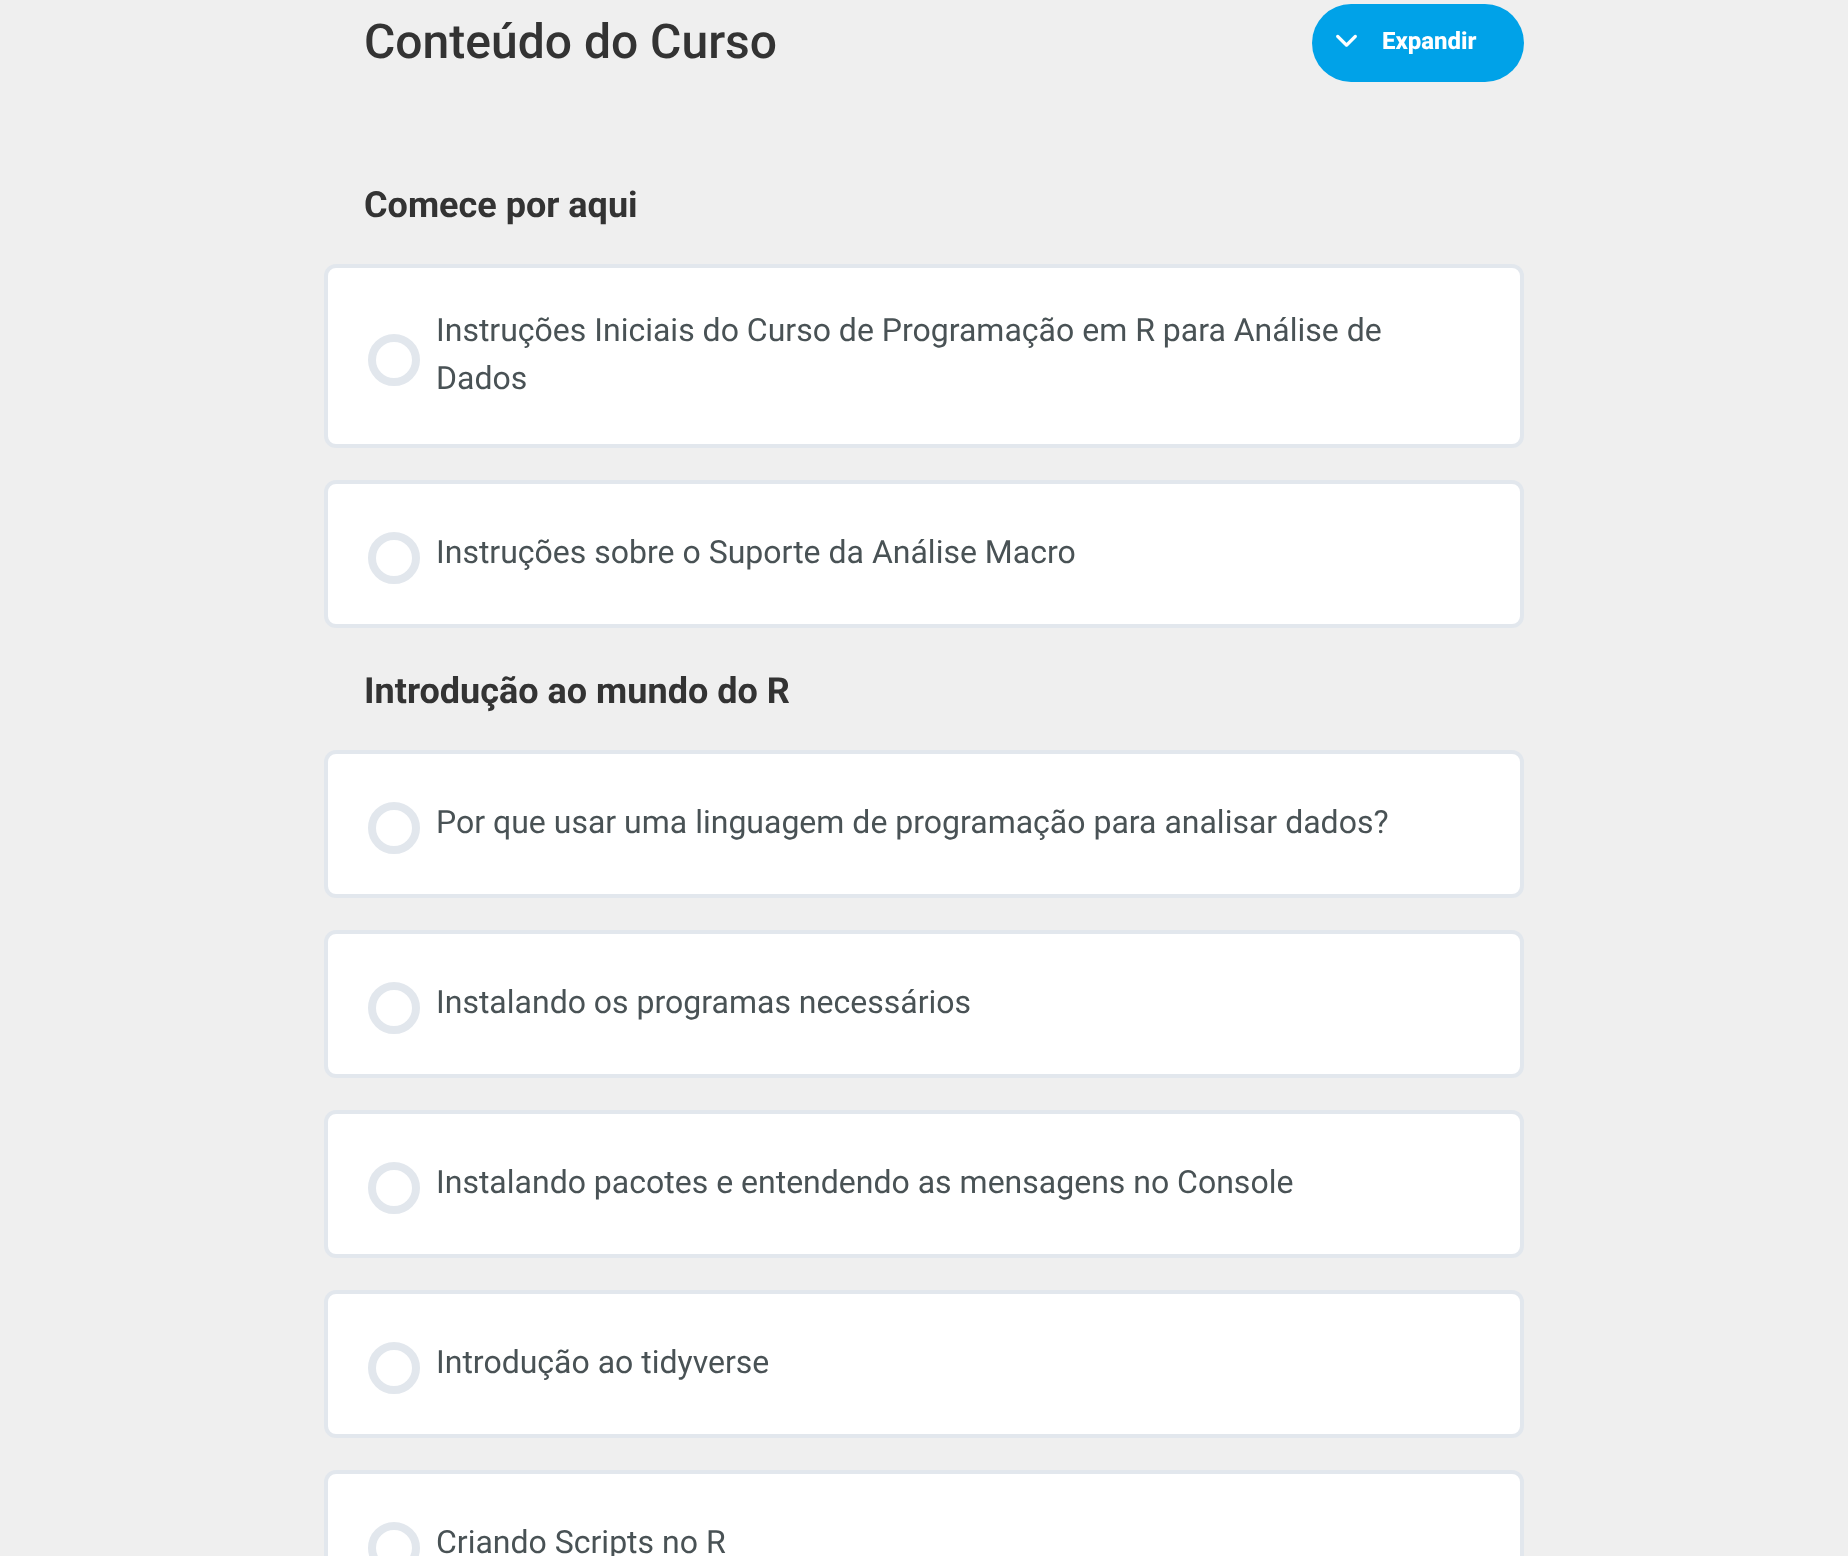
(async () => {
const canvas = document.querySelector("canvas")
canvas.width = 1848
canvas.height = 1556
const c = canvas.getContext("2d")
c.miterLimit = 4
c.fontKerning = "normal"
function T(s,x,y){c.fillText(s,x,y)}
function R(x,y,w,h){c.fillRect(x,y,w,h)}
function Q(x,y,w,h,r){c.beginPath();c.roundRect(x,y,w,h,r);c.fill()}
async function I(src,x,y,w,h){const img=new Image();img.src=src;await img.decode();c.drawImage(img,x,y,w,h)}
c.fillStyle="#efefef"
R(0,0,1848,1556)
c.font="500 48px Roboto"
c.fillStyle="#333"
T("Conteúdo do Curso",364,58)
c.fillStyle="#00a2e8"
Q(1312,4,212,78,39)
await I("1.png",1336,34,21,13)
c.font="800 24px Roboto"
c.fillStyle="#fff"
T("Expandir",1382,49)
c.font="bold 36px Roboto"
c.fillStyle="#333"
T("Comece por aqui",364,217)
c.fillStyle="#fff"
c.beginPath()
c.roundRect(326,266,1196,180,10)
c.fill()
c.strokeStyle="#e2e7ed"
c.lineWidth=4
c.stroke()
c.beginPath()
c.arc(394,360,22,0,7)
c.lineWidth=8
c.stroke()
c.font="32px Roboto"
c.fillStyle="#495255"
T("Instruções Iniciais do Curso de Programação em R para Análise de",436,341)
T("Dados",436,389)
c.fillStyle="#fff"
c.beginPath()
c.roundRect(326,482,1196,144,10)
c.fill()
c.lineWidth=4
c.stroke()
c.beginPath()
c.arc(394,558,22,0,7)
c.lineWidth=8
c.stroke()
c.fillStyle="#495255"
T("Instruções sobre o Suporte da Análise Macro",436,563)
c.font="bold 36px Roboto"
c.fillStyle="#333"
T("Introdução ao mundo do R",364,703)
c.fillStyle="#fff"
c.beginPath()
c.roundRect(326,752,1196,144,10)
c.fill()
c.lineWidth=4
c.stroke()
c.beginPath()
c.arc(394,828,22,0,7)
c.lineWidth=8
c.stroke()
c.font="32px Roboto"
c.fillStyle="#495255"
T("Por que usar uma linguagem de programação para analisar dados?",436,833)
c.fillStyle="#fff"
c.beginPath()
c.roundRect(326,932,1196,144,10)
c.fill()
c.lineWidth=4
c.stroke()
c.beginPath()
c.arc(394,1008,22,0,7)
c.lineWidth=8
c.stroke()
c.fillStyle="#495255"
T("Instalando os programas necessários",436,1013)
c.fillStyle="#fff"
c.beginPath()
c.roundRect(326,1112,1196,144,10)
c.fill()
c.lineWidth=4
c.stroke()
c.beginPath()
c.arc(394,1188,22,0,7)
c.lineWidth=8
c.stroke()
c.fillStyle="#495255"
T("Instalando pacotes e entendendo as mensagens no Console",436,1193)
c.fillStyle="#fff"
c.beginPath()
c.roundRect(326,1292,1196,144,10)
c.fill()
c.lineWidth=4
c.stroke()
c.beginPath()
c.arc(394,1368,22,0,7)
c.lineWidth=8
c.stroke()
c.fillStyle="#495255"
T("Introdução ao tidyverse",436,1373)
c.fillStyle="#fff"
c.beginPath()
c.roundRect(326,1472,1196,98,10)
c.fill()
c.lineWidth=4
c.stroke()
c.beginPath()
c.arc(394,1548,22,0,7)
c.lineWidth=8
c.stroke()
c.fillStyle="#495255"
T("Criando Scripts no R",436,1553)
})()
